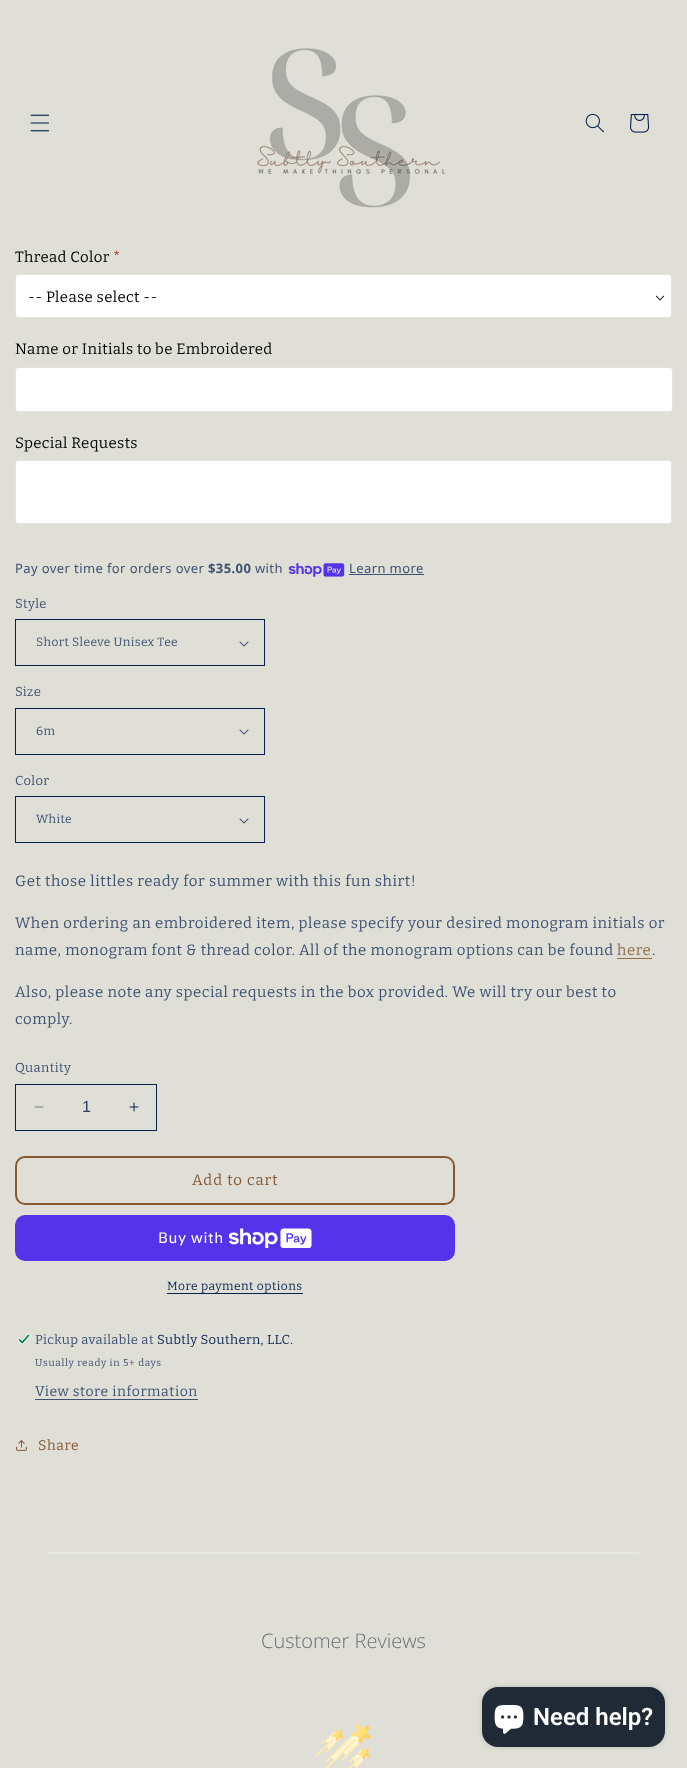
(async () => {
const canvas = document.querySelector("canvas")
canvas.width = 687
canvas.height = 1768
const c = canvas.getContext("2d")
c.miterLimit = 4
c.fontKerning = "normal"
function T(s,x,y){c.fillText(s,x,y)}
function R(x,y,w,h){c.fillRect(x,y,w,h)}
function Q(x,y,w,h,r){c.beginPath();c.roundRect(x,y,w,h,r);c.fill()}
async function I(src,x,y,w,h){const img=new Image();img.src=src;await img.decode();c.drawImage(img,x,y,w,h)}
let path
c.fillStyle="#dfdfd8"
R(0,0,687,1768)
await I("1.png",30,114,20,18)
await I("2.png",257,48,188,160)
await I("3.png",585,113,19,20)
await I("4.png",630,114,20,19)
c.letterSpacing="0.4px"
c.font="15px Bitter"
c.fillStyle="#000"
T("Thread Color",15,262)
c.fillStyle="#b22222"
T("*",113,262)
c.fillStyle="#fff"
c.beginPath()
c.roundRect(15.5,274.5,656,43,2.5)
c.fill()
c.strokeStyle="#e3e1e1"
c.stroke()
c.fillStyle="#000"
T("-- Please select --",28,302)
path = new Path2D("M663.5 295.5l.5 1l-4 4l-.5-.5z")
c.fill(path)
path = new Path2D("M656.5 295.5l4 4.5l-.5 .5l-4-4z")
c.fill(path)
T("Name or Initials to be Embroidered",15,354)
c.fillStyle="#fff"
c.beginPath()
c.roundRect(15.5,367.5,657,44,2.5)
c.fill()
c.stroke()
c.fillStyle="#000"
T("Special Requests",15,448)
c.fillStyle="#fff"
c.beginPath()
c.roundRect(15.5,460.5,656,63,2.5)
c.fill()
c.stroke()
c.font="13px Noto Sans"
c.fillStyle="#3f5170"
T("Pay over time for orders over",15,573)
c.font="bold 13px Noto Sans"
T("$35.00",208,573)
c.font="13px Noto Sans"
T("with",255,573)
await I("5.png",288,563,57,14)
T("Learn more",349,573)
R(349,574,75,1)
c.font="13px Bitter"
T("Style",15,608)
await I("6.png",239,641,10,6)
c.strokeStyle="#09214d"
c.strokeRect(15.5,619.5,249,46)
c.font="12px Bitter"
T("Short Sleeve Unisex Tee",36,646)
c.font="13px Bitter"
T("Size",15,696)
await I("6.png",239,729,10,6)
c.strokeRect(15.5,708.5,249,46)
c.font="12px Bitter"
T("6m",36,735)
c.font="13px Bitter"
T("Color",15,785)
await I("6.png",239,818,10,6)
c.strokeRect(15.5,796.5,249,46)
c.font="12px Bitter"
T("White",36,823)
c.letterSpacing="0.6px"
c.font="15px Bitter"
T("Get those littles ready for summer with this fun shirt!",15,886)
T("When ordering an embroidered item, please specify your desired monogram initials or",15,928)
T("name, monogram font & thread color. All of the monogram options can be found",15,955)
c.fillStyle="#936c4b"
T("here",617,955)
R(617,958,35,1)
c.fillStyle="#3f5170"
T(".",652,955)
T("Also, please note any special requests in the box provided. We will try our best to",15,997)
T("comply.",15,1024)
c.letterSpacing="0.4px"
c.font="13px Bitter"
T("Quantity",15,1072)
await I("7.png",34,1106,10,2)
await I("8.png",129,1102,10,10)
c.strokeRect(15.5,1084.5,141,46)
c.letterSpacing="0px"
c.font="16px Liberation Sans"
c.fillStyle="#293e62"
T("1",82,1112)
c.beginPath()
c.roundRect(16,1157,438,47,9)
c.strokeStyle="#855832"
c.lineWidth=2
c.stroke()
c.letterSpacing="1px"
c.font="15px Bitter"
c.fillStyle="#855832"
T("Add to cart",192,1185)
c.fillStyle="#5433eb"
Q(15,1215,440,46,10)
c.letterSpacing="0.6px"
c.font="15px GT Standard"
c.fillStyle="#fff"
T("Buy with",158,1243)
await I("9.png",228,1228,84,20)
c.letterSpacing="0.5px"
c.font="12px Bitter"
c.fillStyle="#09214d"
T("More payment options",167,1290)
R(167,1293,136,1)
await I("10.png",17,1333,14,12)
c.letterSpacing="0.4px"
c.font="13px Bitter"
c.fillStyle="#3f5170"
T("Pickup available at",35,1344)
c.fillStyle="#09214d"
T("Subtly Southern, LLC.",157,1344)
c.letterSpacing="0.7px"
c.font="10px Bitter"
c.fillStyle="#3f5170"
T("Usually ready in 5+ days",35,1366)
c.letterSpacing="0.6px"
c.font="14px Bitter"
T("View store information",35,1396)
R(35,1399,163,1)
await I("11.png",16,1440,11,11)
c.fillStyle="#855832"
T("Share",38,1450)
await I("12.png",48,1552,591,2)
c.letterSpacing="0px"
c.font="300 20px Open Sans"
c.fillStyle="#6b6d76"
T("Customer Reviews",261,1648)
await I("13.png",316,1724,55,44)
c.fillStyle="#00000026"
c.filter="blur(2.5px)"
c.beginPath()
c.roundRect(482,1687,183,60,16)
c.fill()
c.filter="none"
c.fillStyle="#202a36"
Q(482,1687,183,60,16)
await I("14.png",494,1705,30,29)
c.font="600 24px Roboto"
c.fillStyle="#fff"
T("Need help?",533,1725)
})()
